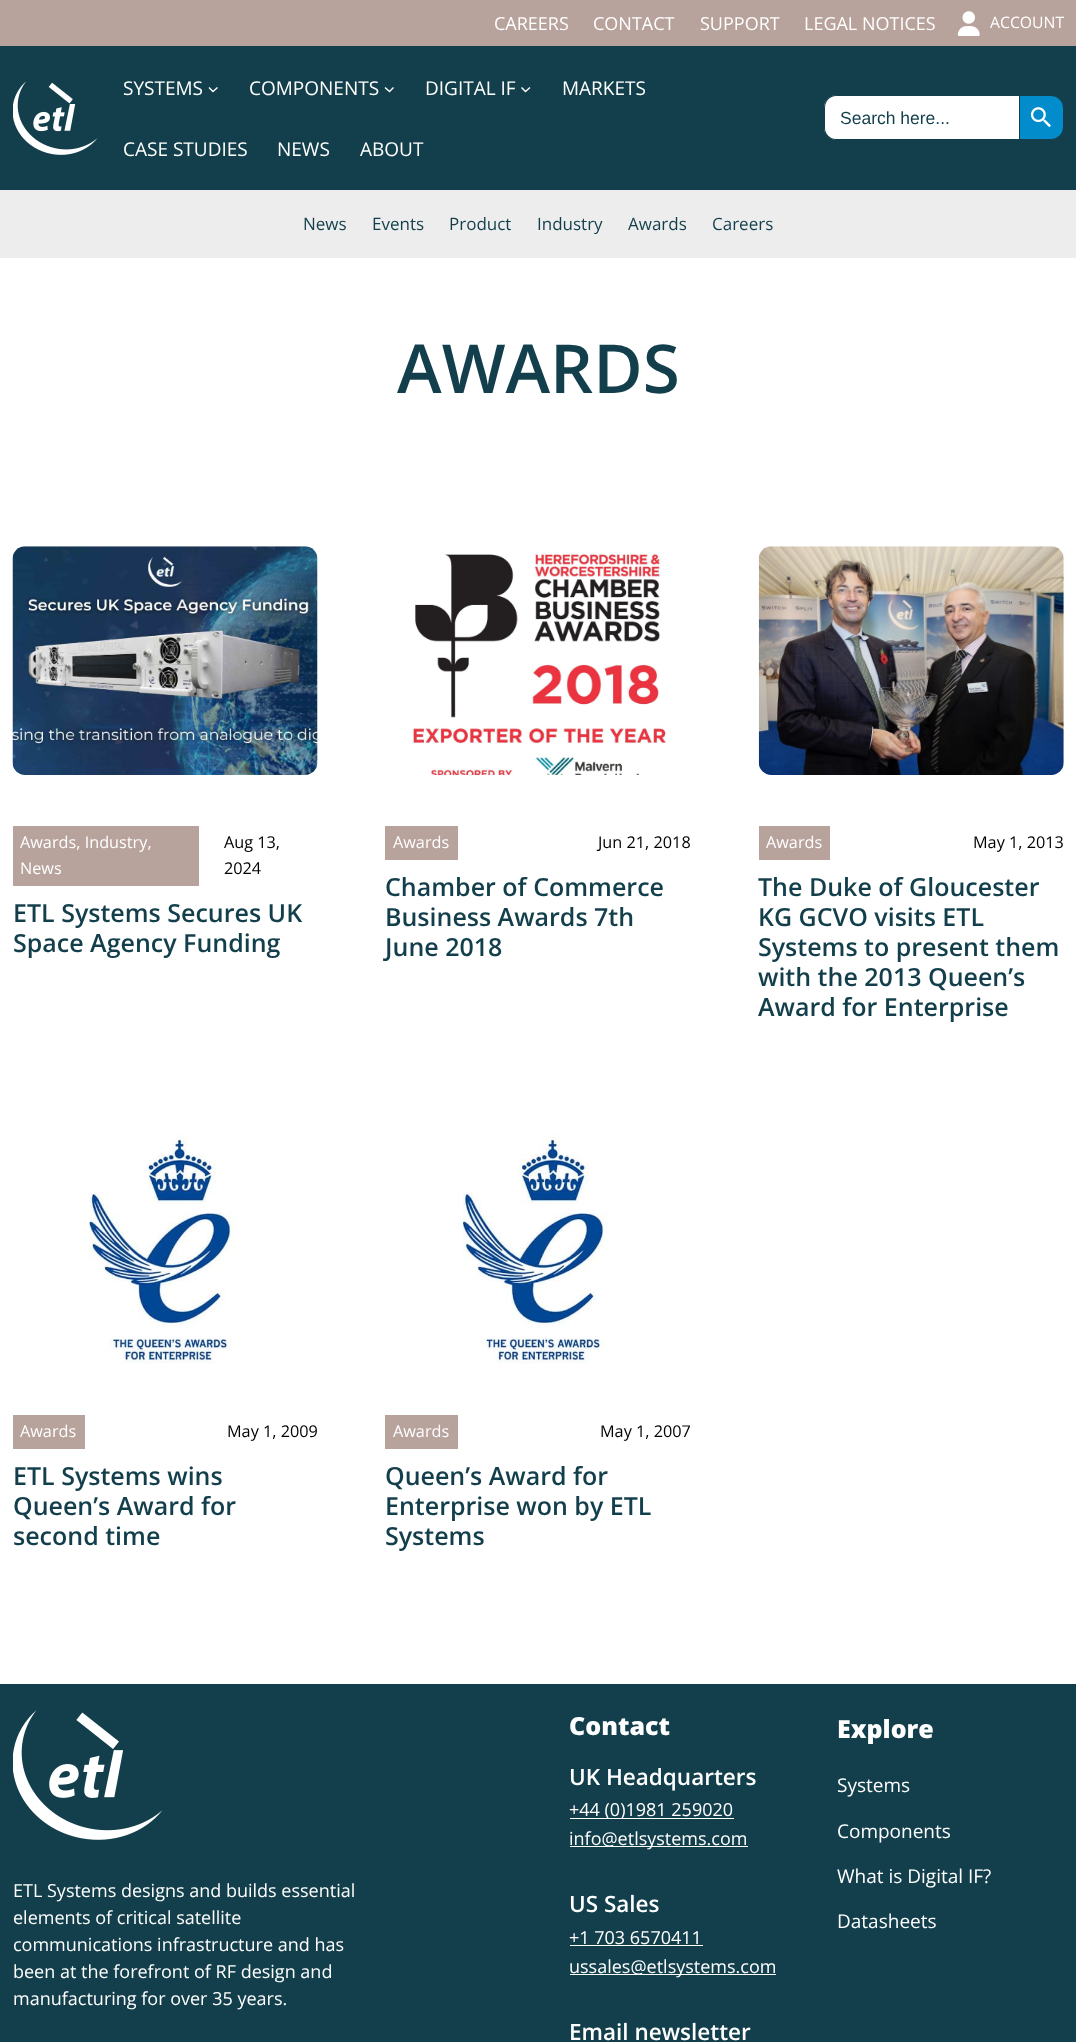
(async () => {
const canvas = document.querySelector("canvas")
canvas.width = 1076
canvas.height = 2042
const c = canvas.getContext("2d")
c.miterLimit = 4
c.fontKerning = "normal"
function T(s,x,y){c.fillText(s,x,y)}
function R(x,y,w,h){c.fillRect(x,y,w,h)}
async function I(src,x,y,w,h){const img=new Image();img.src=src;await img.decode();c.drawImage(img,x,y,w,h)}
let path
c.fillStyle="#fff"
R(0,0,1076,2042)
c.fillStyle="#b8a29c"
R(0,0,1076,46)
c.font="18px Open Sans"
c.fillStyle="#fff"
T("CAREERS",494,30)
T("CONTACT",593,30)
T("SUPPORT",700,30)
T("LEGAL NOTICES",804,30)
await I("1.png",957,11,23,25)
c.font="15.75px Open Sans"
T("ACCOUNT",990,28)
c.fillStyle="#123f4b"
R(0,46,1076,144)
await I("2.png",13,81,85,74)
c.font="19px Open Sans"
c.fillStyle="#fff"
T("SYSTEMS",123,95)
path = new Path2D("M209 87.5l4 4l4.5-4")
c.strokeStyle="#fff"
c.lineWidth=1.4
c.stroke(path)
T("COMPONENTS",249,95)
path = new Path2D("M385 87.5l4.5 4l4-4")
c.stroke(path)
T("DIGITAL IF",425,95)
path = new Path2D("M521.5 87.5l4 4l4.5-4")
c.stroke(path)
T("MARKETS",562,95)
T("CASE STUDIES",123,156)
T("NEWS",277,156)
T("ABOUT",360,156)
c.beginPath()
c.roundRect(824,95,195,45,[13,0,0,13])
c.fill()
c.fillStyle="#123f4b"
path = new Path2D("M836 95h183v45h-183c-7 0-12-6-12-12v-20c0-7 5-13 12-13zm0 1h183v43h-183c-6 0-11-5-11-11v-20c0-7 5-12 11-12z")
c.fill(path,"evenodd")
c.font="17.5px Liberation Sans"
T("Search here...",840,124)
c.fillStyle="#028ccc"
c.beginPath()
c.roundRect(1019.5,95.5,44,44,[0,12.5,12.5,0])
c.fill()
c.strokeStyle="#123f4b"
c.lineWidth=1
c.stroke()
await I("3.png",1030,107,21,21)
c.fillStyle="#ededed"
R(0,190,1076,68)
c.font="17px Open Sans"
c.fillStyle="#123f4b"
T("News",303,230)
T("Events",372,230)
T("Product",449,230)
T("Industry",537,230)
T("Awards",628,230)
T("Careers",712,230)
c.font="600 67.5px Open Sans"
T("AWARDS",397,393)
await I("4.png",12,546,306,229)
c.fillStyle="#b8a29c"
R(13,826,186,60)
c.font="16.25px Open Sans"
c.fillStyle="#fff"
T("Awards, Industry,",20,848)
T("News",20,874)
c.fillStyle="#000"
T("Aug 13,",224,848)
T("2024",224,874)
c.font="600 25px Open Sans"
c.fillStyle="#123f4b"
T("ETL Systems Secures UK",13,922)
T("Space Agency Funding",13,952)
await I("5.png",412,552,254,223)
c.fillStyle="#b8a29c"
R(385,826,73,34)
c.font="16.25px Open Sans"
c.fillStyle="#fff"
T("Awards",393,848)
c.fillStyle="#000"
T("Jun 21, 2018",598,848)
c.font="600 25px Open Sans"
c.fillStyle="#123f4b"
T("Chamber of Commerce",385,896)
T("Business Awards 7th",385,926)
T("June 2018",385,956)
await I("6.png",758,546,306,229)
c.fillStyle="#b8a29c"
R(759,826,71,34)
c.font="16.25px Open Sans"
c.fillStyle="#fff"
T("Awards",766,848)
c.fillStyle="#000"
T("May 1, 2013",973,848)
c.font="600 25px Open Sans"
c.fillStyle="#123f4b"
T("The Duke of Gloucester",758,896)
T("KG GCVO visits ETL",758,926)
T("Systems to present them",758,956)
T("with the 2013 Queen’s",758,986)
T("Award for Enterprise",758,1016)
await I("7.png",89,1135,147,229)
c.fillStyle="#b8a29c"
R(13,1415,72,34)
c.font="16.25px Open Sans"
c.fillStyle="#fff"
T("Awards",20,1437)
c.fillStyle="#000"
T("May 1, 2009",227,1437)
c.font="600 25px Open Sans"
c.fillStyle="#123f4b"
T("ETL Systems wins",13,1485)
T("Queen’s Award for",13,1515)
T("second time",13,1545)
await I("8.png",462,1135,146,229)
c.fillStyle="#b8a29c"
R(385,1415,73,34)
c.font="16.25px Open Sans"
c.fillStyle="#fff"
T("Awards",393,1437)
c.fillStyle="#000"
T("May 1, 2007",600,1437)
c.font="600 25px Open Sans"
c.fillStyle="#123f4b"
T("Queen’s Award for",385,1485)
T("Enterprise won by ETL",385,1515)
T("Systems",385,1545)
R(0,1684,1076,358)
c.font="800 25px Open Sans"
c.fillStyle="#fff"
T("Contact",569,1735)
c.font="600 22.5px Open Sans"
T("UK Headquarters",569,1785)
R(570,1818,164,1)
c.font="18px Open Sans"
T("+44 (0)1981 259020",569,1816)
R(570,1846,178,1)
T("info@etlsystems.com",569,1845)
c.font="600 22.5px Open Sans"
T("US Sales",569,1912)
c.font="18px Open Sans"
T("+1 703 6570411",569,1944)
R(570,1945,133,1)
R(570,1974,206,1)
T("ussales@etlsystems.com",569,1973)
c.font="600 22.5px Open Sans"
T("Email newsletter",569,2040)
c.font="800 25px Open Sans"
T("Explore",837,1738)
c.font="19px Open Sans"
T("Systems",837,1792)
T("Components",837,1838)
T("What is Digital IF?",837,1883)
T("Datasheets",837,1928)
await I("9.png",13,1710,150,130)
c.font="18px Open Sans"
T("ETL Systems designs and builds essential",13,1897)
T("elements of critical satellite",13,1924)
T("communications infrastructure and has",13,1951)
T("been at the forefront of RF design and",13,1978)
T("manufacturing for over 35 years.",13,2005)
})()
